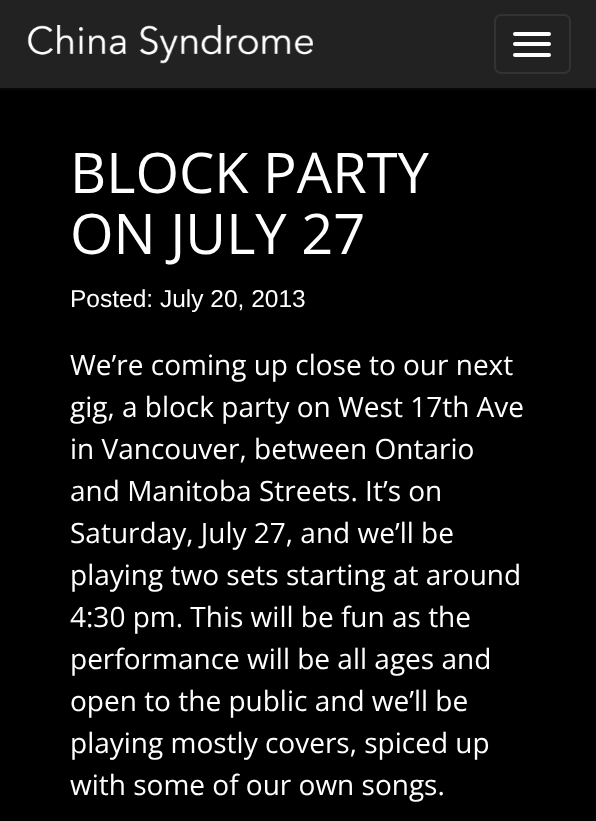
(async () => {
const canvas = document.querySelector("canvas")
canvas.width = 596
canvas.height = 821
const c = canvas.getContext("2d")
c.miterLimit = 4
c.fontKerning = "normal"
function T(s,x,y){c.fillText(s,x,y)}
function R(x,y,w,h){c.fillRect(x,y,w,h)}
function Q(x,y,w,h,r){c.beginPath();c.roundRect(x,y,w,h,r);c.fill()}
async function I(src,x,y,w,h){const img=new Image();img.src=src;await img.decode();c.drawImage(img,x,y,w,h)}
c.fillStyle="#000"
R(0,0,596,821)
c.fillStyle="#222"
R(0,0,596,88)
c.fillStyle="#080808"
R(0,88,596,2)
await I("1.png",27,25,286,39)
c.beginPath()
c.roundRect(495,15,75,58,6)
c.strokeStyle="#333"
c.lineWidth=2
c.stroke()
c.fillStyle="#fff"
Q(513,32,38,4,2)
Q(513,42,38,4,2)
Q(513,53,38,4,2)
c.font="56px Open Sans"
T("BLOCK PARTY",70,193)
T("ON JULY 27",70,254)
c.font="24.5px Liberation Sans"
T("Posted: July 20, 2013",70,307)
c.font="28px Open Sans"
T("We’re coming up close to our next",70,375)
T("gig, a block party on West 17th Ave",70,417)
T("in Vancouver, between Ontario",70,459)
T("and Manitoba Streets. It’s on",70,501)
T("Saturday, July 27, and we’ll be",70,543)
T("playing two sets starting at around",70,585)
T("4:30 pm. This will be fun as the",70,627)
T("performance will be all ages and",70,669)
T("open to the public and we’ll be",70,711)
T("playing mostly covers, spiced up",70,753)
T("with some of our own songs.",70,795)
})()
